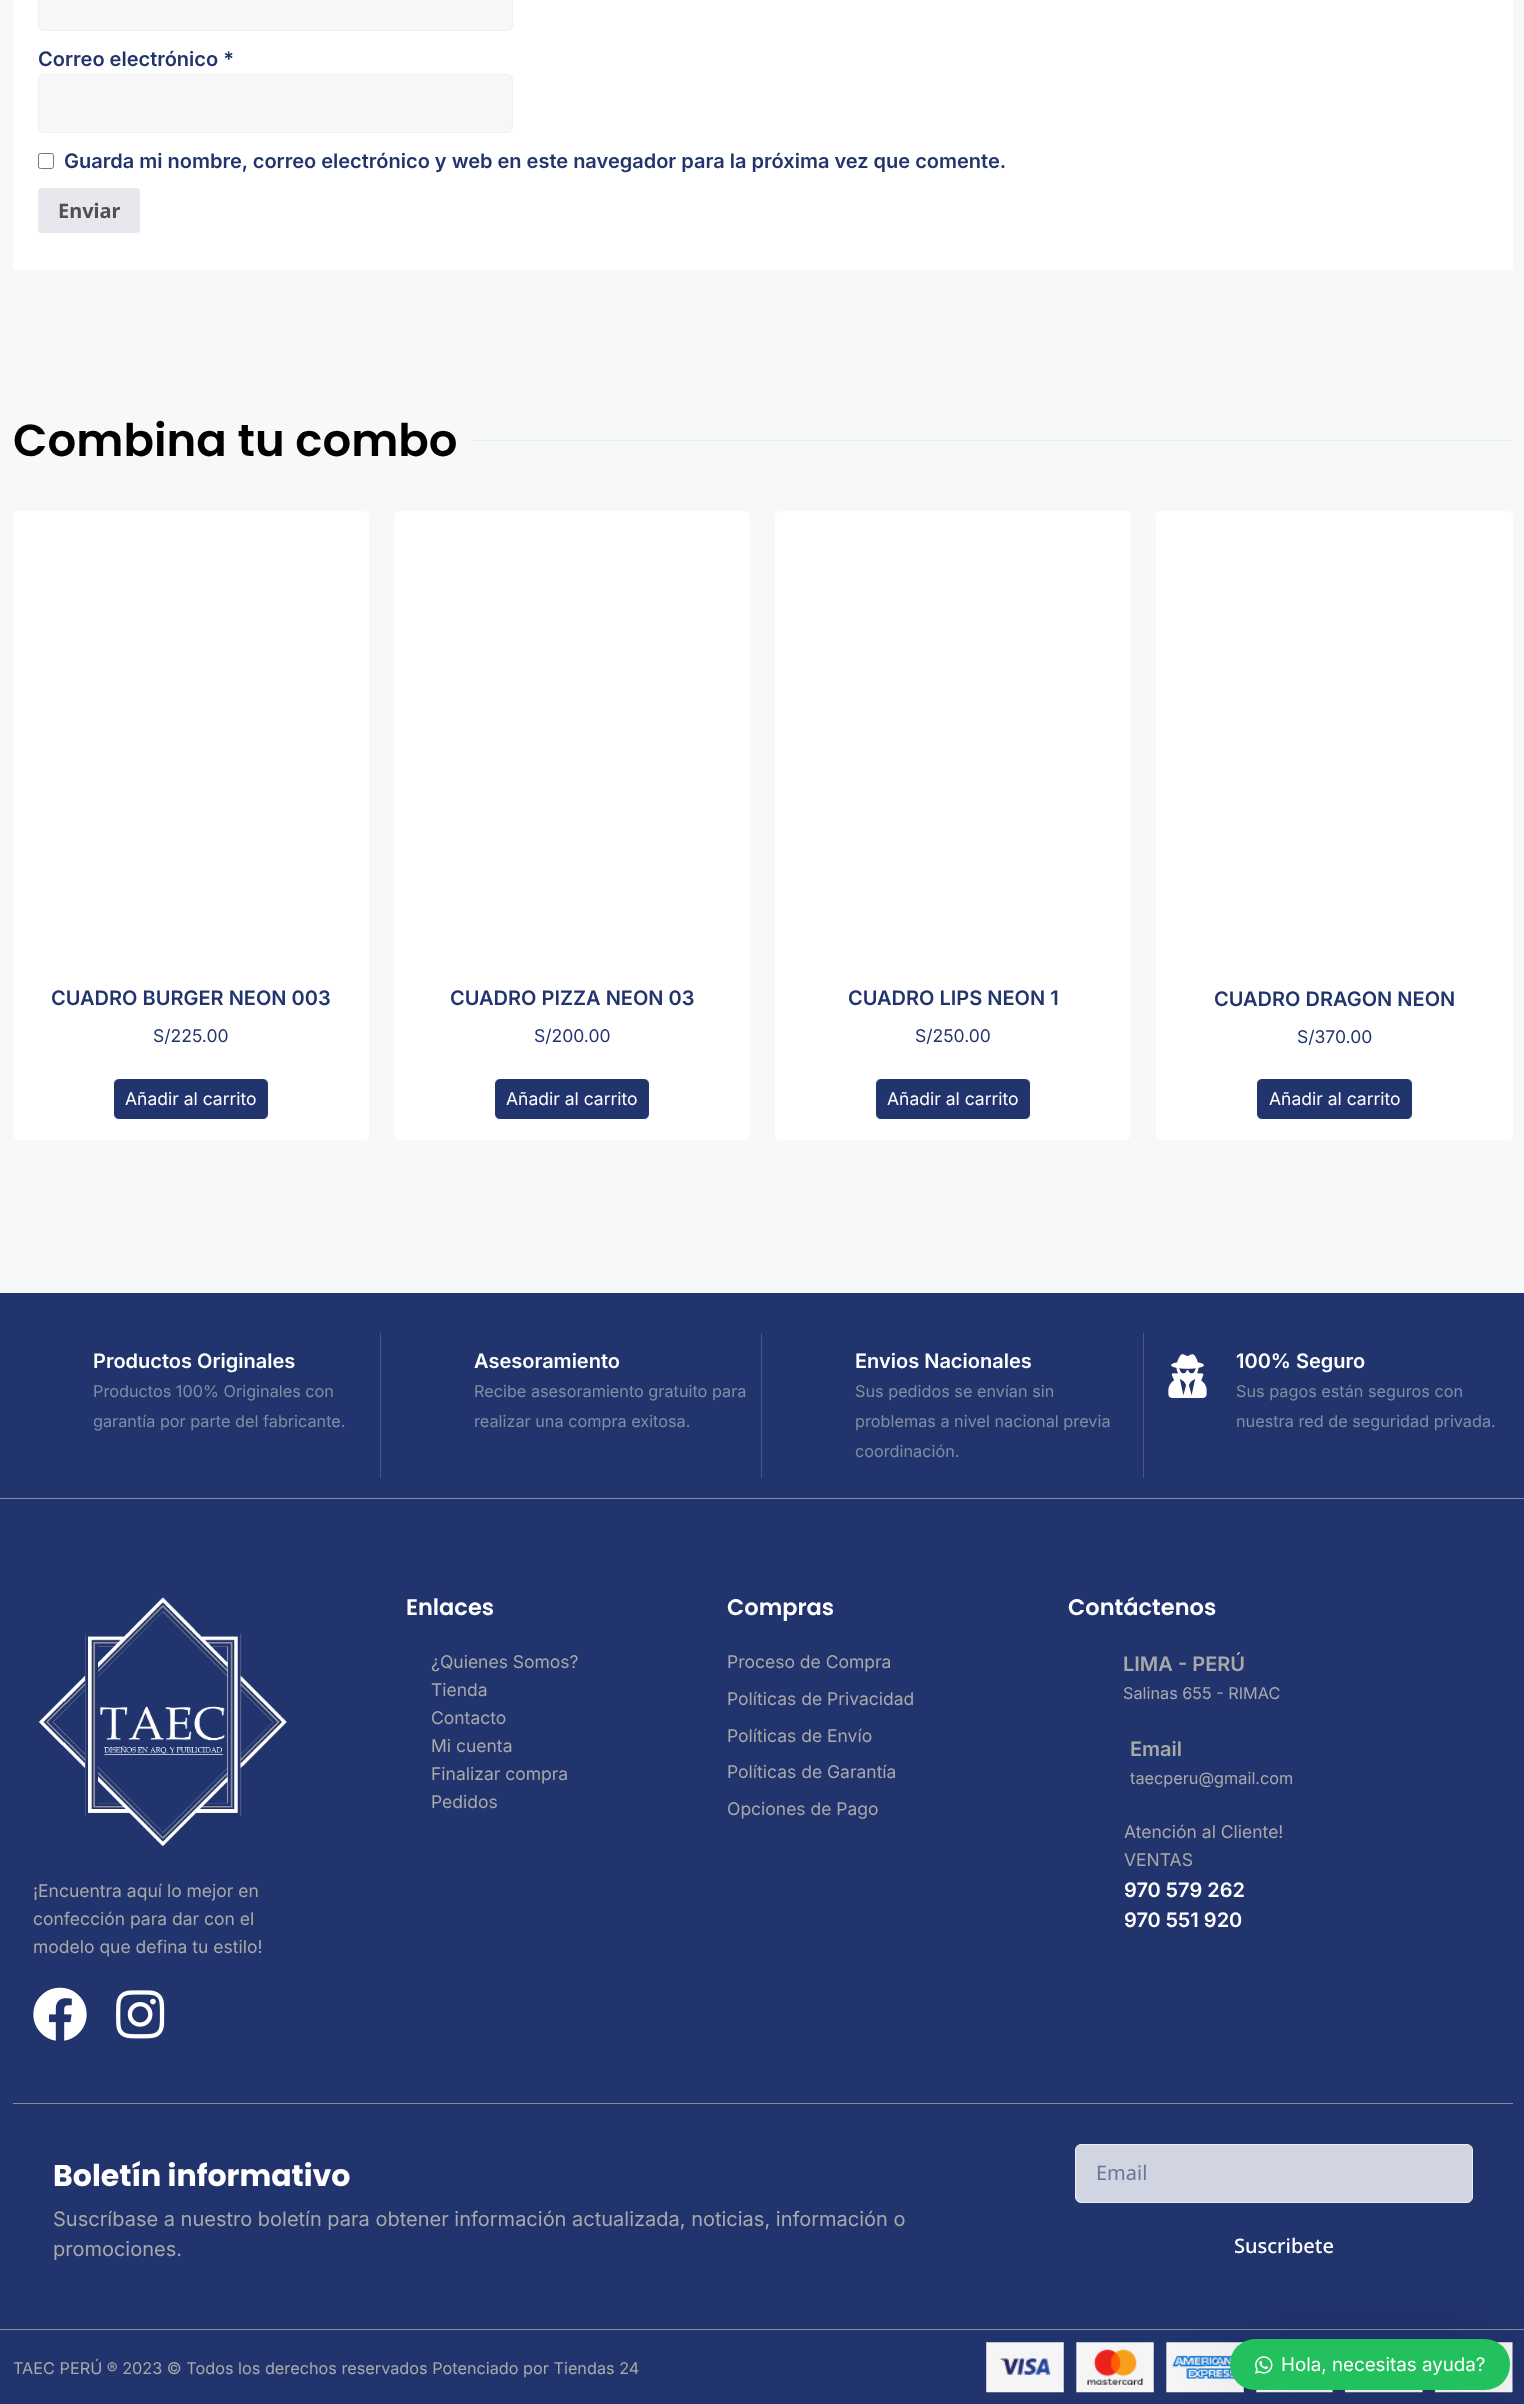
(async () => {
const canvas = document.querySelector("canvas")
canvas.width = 1524
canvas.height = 2404
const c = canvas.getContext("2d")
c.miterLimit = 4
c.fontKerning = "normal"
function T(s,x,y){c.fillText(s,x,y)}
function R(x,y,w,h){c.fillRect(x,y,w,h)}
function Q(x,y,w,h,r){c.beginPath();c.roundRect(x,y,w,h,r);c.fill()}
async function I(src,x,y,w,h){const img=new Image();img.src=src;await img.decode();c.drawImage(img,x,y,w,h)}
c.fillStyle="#f7f8f9"
R(0,0,1524,2404)
c.fillStyle="#fff"
R(13,0,1500,270)
c.fillStyle="#f7f7f7"
c.beginPath()
c.roundRect(38.5,-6.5,474,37,5.5)
c.fill()
c.strokeStyle="#ecf0f0"
c.stroke()
c.font="600 20px Inter"
c.fillStyle="#22346e"
T("Correo electrónico *",38,66)
c.fillStyle="#f7f7f7"
c.beginPath()
c.roundRect(38.5,74.5,474,58,5.5)
c.fill()
c.stroke()
c.beginPath()
c.roundRect(38.5,153.5,15,15,2)
c.strokeStyle="#767676"
c.stroke()
c.fillStyle="#22346e"
T("Guarda mi nombre, correo electrónico y web en este navegador para la próxima vez que comente.",64,168)
c.fillStyle="#e9e6ed"
Q(38,188,102,45,4)
c.font="bold 20px Noto Sans"
c.fillStyle="#515151"
T("Enviar",58,218)
c.font="600 45px Poppins"
c.fillStyle="#000"
T("Combina tu combo",13,456)
c.fillStyle="#ecf0f0"
R(470,440,1043,1)
c.fillStyle="#fff"
Q(13,511,356,629,6)
c.font="600 20px Inter"
c.fillStyle="#22346e"
T("CUADRO BURGER NEON 003",51,1005)
c.font="17.5px Inter"
T("S/225.00",153,1042)
c.beginPath()
c.roundRect(113.5,1078.5,155,41,5.5)
c.fill()
c.strokeStyle="#fff"
c.stroke()
c.fillStyle="#fff"
T("Añadir al carrito",125,1105)
Q(394,511,356,629,6)
c.font="600 20px Inter"
c.fillStyle="#22346e"
T("CUADRO PIZZA NEON 03",450,1005)
c.font="17.5px Inter"
T("S/200.00",534,1042)
c.beginPath()
c.roundRect(494.5,1078.5,155,41,5.5)
c.fill()
c.stroke()
c.fillStyle="#fff"
T("Añadir al carrito",506,1105)
Q(775,511,356,629,6)
c.font="600 20px Inter"
c.fillStyle="#22346e"
T("CUADRO LIPS NEON 1",848,1005)
c.font="17.5px Inter"
T("S/250.00",915,1042)
c.beginPath()
c.roundRect(875.5,1078.5,155,41,5.5)
c.fill()
c.stroke()
c.fillStyle="#fff"
T("Añadir al carrito",887,1105)
Q(1156,511,357,629,6)
c.font="600 20px Inter"
c.fillStyle="#22346e"
T("CUADRO DRAGON NEON",1214,1006)
c.font="17.5px Inter"
T("S/370.00",1297,1043)
c.beginPath()
c.roundRect(1256.5,1078.5,156,41,5.5)
c.fill()
c.stroke()
c.fillStyle="#fff"
T("Añadir al carrito",1269,1105)
c.fillStyle="#22346e"
R(0,1293,1524,205)
c.fillStyle="#818ea0"
R(0,1498,1524,1)
c.fillStyle="#485787"
R(380,1333,1,145)
c.font="600 20px Inter"
c.fillStyle="#fff"
T("Productos Originales",93,1368)
c.font="16.25px Inter"
c.fillStyle="#818ea0"
T("Productos 100% Originales con",93,1397)
T("garantía por parte del fabricante.",93,1427)
c.fillStyle="#485787"
R(761,1333,1,145)
c.font="600 20px Inter"
c.fillStyle="#fff"
T("Asesoramiento",474,1368)
c.font="16.25px Inter"
c.fillStyle="#818ea0"
T("Recibe asesoramiento gratuito para",474,1397)
T("realizar una compra exitosa.",474,1427)
c.fillStyle="#485787"
R(1143,1333,1,145)
c.font="600 20px Inter"
c.fillStyle="#fff"
T("Envios Nacionales",855,1368)
c.font="16.25px Inter"
c.fillStyle="#818ea0"
T("Sus pedidos se envían sin",855,1397)
T("problemas a nivel nacional previa",855,1427)
T("coordinación.",855,1457)
await I("1.png",1168,1354,39,44)
c.font="600 20px Inter"
c.fillStyle="#fff"
T("100% Seguro",1236,1368)
c.font="16.25px Inter"
c.fillStyle="#818ea0"
T("Sus pagos están seguros con",1236,1397)
T("nuestra red de seguridad privada.",1236,1427)
c.fillStyle="#22346e"
R(0,1499,1524,830)
c.font="600 22.5px Poppins"
c.fillStyle="#fff"
T("Enlaces",406,1615)
c.font="17.5px Inter"
c.fillStyle="#a9a9a9"
T("¿Quienes Somos?",431,1668)
T("Tienda",431,1696)
T("Contacto",431,1724)
T("Mi cuenta",431,1752)
T("Finalizar compra",431,1780)
T("Pedidos",431,1808)
c.font="600 22.5px Poppins"
c.fillStyle="#fff"
T("Compras",727,1615)
c.font="17.5px Inter"
c.fillStyle="#a9a9a9"
T("Proceso de Compra",727,1668)
T("Políticas de Privacidad",727,1705)
T("Políticas de Envío",727,1742)
T("Políticas de Garantía",727,1778)
T("Opciones de Pago",727,1815)
c.font="600 22.5px Poppins"
c.fillStyle="#fff"
T("Contáctenos",1068,1615)
c.font="600 20px Inter"
c.fillStyle="#a9a9a9"
T("LIMA - PERÚ",1123,1671)
c.font="16.25px Inter"
T("Salinas 655 - RIMAC",1123,1699)
c.font="600 20px Inter"
T("Email",1130,1756)
c.font="16.25px Inter"
T("taecperu@gmail.com",1130,1784)
c.font="17.5px Inter"
T("Atención al Cliente!",1124,1838)
T("VENTAS",1124,1866)
c.font="600 20px Inter"
c.fillStyle="#fff"
T("970 579 262",1124,1897)
T("970 551 920",1124,1927)
await I("2.png",38,1597,249,250)
c.font="17.5px Inter"
c.fillStyle="#a9a9a9"
T("¡Encuentra aquí lo mejor en",33,1897)
T("confección para dar con el",33,1925)
T("modelo que defina tu estilo!",33,1953)
await I("3.png",33,1987,54,54)
await I("4.png",116,1990,49,49)
c.fillStyle="#818ea0"
R(13,2103,1500,1)
c.font="bold 30px Poppins"
c.fillStyle="#fff"
T("Boletín informativo",53,2186)
c.font="20px Inter"
c.fillStyle="#a9a9a9"
T("Suscríbase a nuestro boletín para obtener información actualizada, noticias, información o",53,2226)
T("promociones.",53,2256)
c.fillStyle="#d1d4e1"
c.beginPath()
c.roundRect(1075.5,2144.5,397,58,5.5)
c.fill()
c.strokeStyle="#ecf0f0"
c.stroke()
c.font="20px Noto Sans"
c.fillStyle="#68749c"
T("Email",1096,2180)
c.font="500 20px Noto Sans"
c.fillStyle="#fff"
T("Suscribete",1234,2253)
c.fillStyle="#22346e"
R(0,2330,1524,74)
c.fillStyle="#818ea0"
R(0,2329,1524,1)
c.font="16.25px Inter"
c.fillStyle="#a9a9a9"
T("TAEC PERÚ ® 2023 © Todos los derechos reservados Potenciado por Tiendas 24",13,2374)
await I("5.png",986,2342,527,51)
c.fillStyle="#0000001a"
c.filter="blur(31px)"
c.beginPath()
c.roundRect(1230,2339,280,51,25)
c.fill()
c.filter="none"
c.fillStyle="#22c15e"
Q(1230,2339,280,51,25)
await I("6.png",1255,2356,18,18)
c.font="18.75px Inter"
c.fillStyle="#fff"
T("Hola, necesitas ayuda?",1281,2371)
})()
